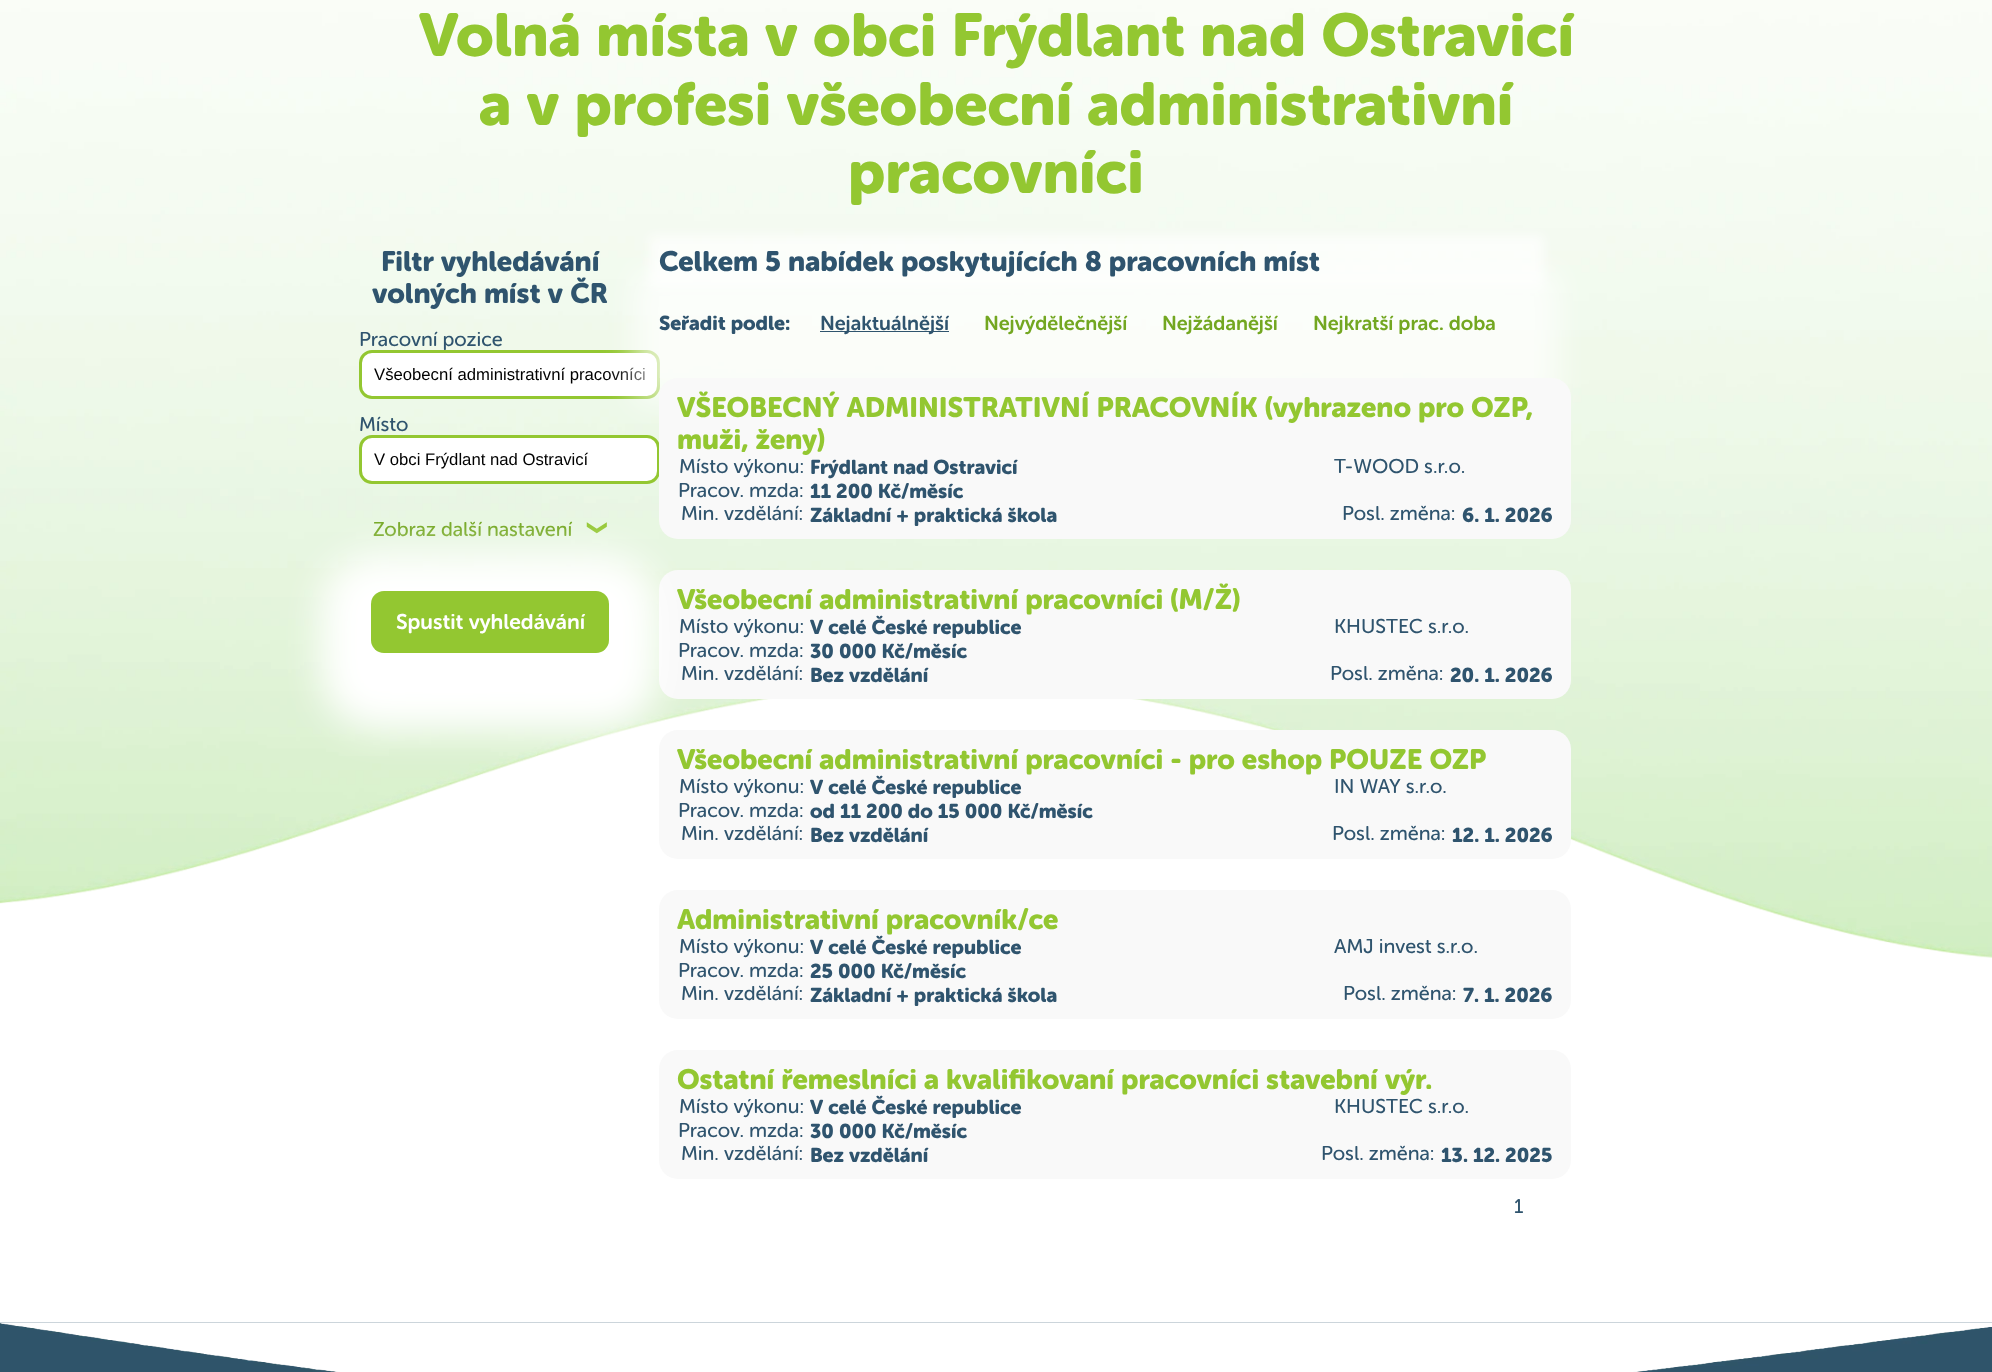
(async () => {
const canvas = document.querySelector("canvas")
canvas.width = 1992
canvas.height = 1372
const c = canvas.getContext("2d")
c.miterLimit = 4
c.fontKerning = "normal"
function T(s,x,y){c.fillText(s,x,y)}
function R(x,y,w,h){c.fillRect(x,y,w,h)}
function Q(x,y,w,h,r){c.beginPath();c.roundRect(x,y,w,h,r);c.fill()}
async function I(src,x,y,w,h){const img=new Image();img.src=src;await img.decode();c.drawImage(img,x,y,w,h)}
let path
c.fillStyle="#fff"
R(0,0,1992,1372)
await I("1.png",0,0,1992,958)
c.font="bold 60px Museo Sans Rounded"
c.fillStyle="#93c731"
T("Volná místa v obci Frýdlant nad Ostravicí",419,56)
T("a v profesi všeobecní administrativní",479,125)
T("pracovníci",848,193)
c.font="bold 28px Museo Sans Rounded"
c.fillStyle="#2f546e"
T("Filtr vyhledávání",381,271)
T("volných míst v ČR",372,303)
c.font="20px Museo Sans Rounded"
T("Pracovní pozice",359,346)
c.fillStyle="#fff"
c.beginPath()
c.roundRect(360.5,351.5,298,46,11.5)
c.fill()
c.strokeStyle="#93c731"
c.lineWidth=3
c.stroke()
c.font="16.7px Liberation Sans"
c.fillStyle="#000"
T("Všeobecní administrativní pracovníci",374,380)
c.font="20px Museo Sans Rounded"
c.fillStyle="#2f546e"
T("Místo",359,431)
c.fillStyle="#fff"
c.beginPath()
c.roundRect(360.5,436.5,298,46,11.5)
c.fill()
c.stroke()
c.font="16.7px Liberation Sans"
c.fillStyle="#000"
T("V obci Frýdlant nad Ostravicí",374,465)
c.font="20px Museo Sans Rounded"
c.fillStyle="#73a721"
T("Zobraz další nastavení",373,536)
c.font="20px DejaVu Sans"
c.fillStyle="#93c731"
c.save()
c.translate(602,536)
c.rotate(-90 * Math.PI / 180)
c.fillText("❮",0,0)
c.restore()
c.save()
path = new Path2D("M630 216h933v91h-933zm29 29h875v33h-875z")
c.clip(path,"evenodd")
c.fillStyle="#ffffffb3"
c.filter="blur(6px)"
c.beginPath()
c.rect(649,235,895,53)
c.fill()
c.filter="none"
c.restore()
c.fillStyle="#ffffffb3"
R(659,245,875,33)
c.save()
path = new Path2D("M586 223h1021v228h-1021zm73 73h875v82h-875z")
c.clip(path,"evenodd")
c.filter="blur(15.5px)"
c.beginPath()
c.rect(634,271,925,132)
c.fill()
c.filter="none"
c.restore()
c.fillStyle="#f9f9f9"
Q(659,378,912,161,19)
Q(659,570,912,129,19)
Q(659,730,912,129,19)
c.fillStyle="#fff"
c.filter="blur(19px)"
c.beginPath()
c.roundRect(321,554,338,175,56)
c.fill()
c.filter="none"
c.fillStyle="#93c731"
Q(371,591,238,62,13)
c.font="600 21.25px Museo Sans Rounded"
c.fillStyle="#fff"
T("Spustit vyhledávání",396,629)
c.font="bold 28px Museo Sans Rounded"
c.fillStyle="#2f546e"
T("Celkem 5 nabídek poskytujících 8 pracovních míst",659,271)
c.fillStyle="#ffffffb3"
R(659,296,875,82)
c.font="bold 20px Museo Sans Rounded"
c.fillStyle="#2f546e"
T("Seřadit podle:",659,330)
R(820,331,129,1)
c.font="600 20px Museo Sans Rounded"
T("Nejaktuálnější",820,330)
c.fillStyle="#73a721"
T("Nejvýdělečnější",984,330)
T("Nejžádanější",1162,330)
T("Nejkratší prac. doba",1313,330)
c.font="bold 28px Museo Sans Rounded"
c.fillStyle="#93c731"
T("VŠEOBECNÝ ADMINISTRATIVNÍ PRACOVNÍK (vyhrazeno pro OZP,",677,417)
T("muži, ženy)",677,449)
c.font="20px Museo Sans Rounded"
c.fillStyle="#2f546e"
T("Místo výkonu:",679,473)
c.font="bold 20px Museo Sans Rounded"
T("Frýdlant nad Ostravicí",810,474)
c.font="20px Museo Sans Rounded"
T("Pracov. mzda:",678,497)
c.font="bold 20px Museo Sans Rounded"
T("11 200 Kč/měsíc",810,498)
c.font="20px Museo Sans Rounded"
T("T-WOOD s.r.o.",1334,473)
T("Min. vzdělání:",681,520)
c.font="bold 20px Museo Sans Rounded"
T("Základní + praktická škola",810,522)
c.font="20px Museo Sans Rounded"
T("Posl. změna:",1342,520)
c.font="bold 20px Museo Sans Rounded"
T("6. 1. 2026",1462,522)
c.font="bold 28px Museo Sans Rounded"
c.fillStyle="#93c731"
T("Všeobecní administrativní pracovníci (M/Ž)",677,609)
c.font="20px Museo Sans Rounded"
c.fillStyle="#2f546e"
T("Místo výkonu:",679,633)
c.font="bold 20px Museo Sans Rounded"
T("V celé České republice",810,634)
c.font="20px Museo Sans Rounded"
T("Pracov. mzda:",678,657)
c.font="bold 20px Museo Sans Rounded"
T("30 000 Kč/měsíc",810,658)
c.font="20px Museo Sans Rounded"
T("KHUSTEC s.r.o.",1334,633)
T("Min. vzdělání:",681,680)
c.font="bold 20px Museo Sans Rounded"
T("Bez vzdělání",810,682)
c.font="20px Museo Sans Rounded"
T("Posl. změna:",1330,680)
c.font="bold 20px Museo Sans Rounded"
T("20. 1. 2026",1450,682)
c.font="bold 28px Museo Sans Rounded"
c.fillStyle="#93c731"
T("Všeobecní administrativní pracovníci - pro eshop POUZE OZP",677,769)
c.font="20px Museo Sans Rounded"
c.fillStyle="#2f546e"
T("Místo výkonu:",679,793)
c.font="bold 20px Museo Sans Rounded"
T("V celé České republice",810,794)
c.font="20px Museo Sans Rounded"
T("Pracov. mzda:",678,817)
c.font="bold 20px Museo Sans Rounded"
T("od 11 200 do 15 000 Kč/měsíc",810,818)
c.font="20px Museo Sans Rounded"
T("IN WAY s.r.o.",1334,793)
T("Min. vzdělání:",681,840)
c.font="bold 20px Museo Sans Rounded"
T("Bez vzdělání",810,842)
c.font="20px Museo Sans Rounded"
T("Posl. změna:",1332,840)
c.font="bold 20px Museo Sans Rounded"
T("12. 1. 2026",1452,842)
c.fillStyle="#f9f9f9"
Q(659,890,912,129,19)
c.font="bold 28px Museo Sans Rounded"
c.fillStyle="#93c731"
T("Administrativní pracovník/ce",677,929)
c.font="20px Museo Sans Rounded"
c.fillStyle="#2f546e"
T("Místo výkonu:",679,953)
c.font="bold 20px Museo Sans Rounded"
T("V celé České republice",810,954)
c.font="20px Museo Sans Rounded"
T("Pracov. mzda:",678,977)
c.font="bold 20px Museo Sans Rounded"
T("25 000 Kč/měsíc",810,978)
c.font="20px Museo Sans Rounded"
T("AMJ invest s.r.o.",1334,953)
T("Min. vzdělání:",681,1000)
c.font="bold 20px Museo Sans Rounded"
T("Základní + praktická škola",810,1002)
c.font="20px Museo Sans Rounded"
T("Posl. změna:",1343,1000)
c.font="bold 20px Museo Sans Rounded"
T("7. 1. 2026",1463,1002)
c.fillStyle="#f9f9f9"
Q(659,1050,912,129,19)
c.font="bold 28px Museo Sans Rounded"
c.fillStyle="#93c731"
T("Ostatní řemeslníci a kvalifikovaní pracovníci stavební výr.",677,1089)
c.font="20px Museo Sans Rounded"
c.fillStyle="#2f546e"
T("Místo výkonu:",679,1113)
c.font="bold 20px Museo Sans Rounded"
T("V celé České republice",810,1114)
c.font="20px Museo Sans Rounded"
T("Pracov. mzda:",678,1137)
c.font="bold 20px Museo Sans Rounded"
T("30 000 Kč/měsíc",810,1138)
c.font="20px Museo Sans Rounded"
T("KHUSTEC s.r.o.",1334,1113)
T("Min. vzdělání:",681,1160)
c.font="bold 20px Museo Sans Rounded"
T("Bez vzdělání",810,1162)
c.font="20px Museo Sans Rounded"
T("Posl. změna:",1321,1160)
c.font="bold 20px Museo Sans Rounded"
T("13. 12. 2025",1441,1162)
c.font="20px Museo Sans Rounded"
T("1",1514,1213)
await I("2.png",0,1322,1992,50)
})()
